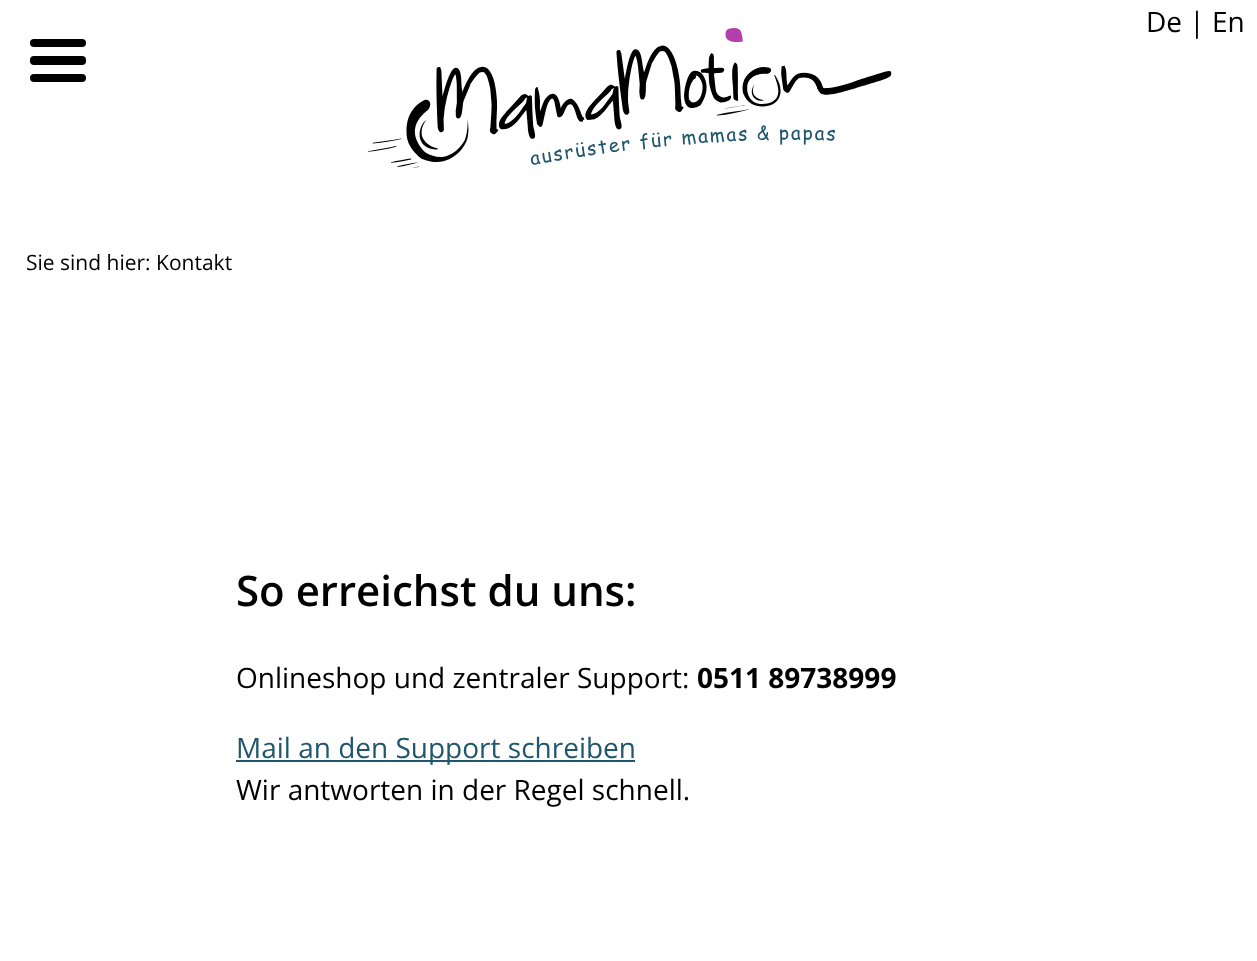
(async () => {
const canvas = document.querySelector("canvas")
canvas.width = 1257
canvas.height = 961
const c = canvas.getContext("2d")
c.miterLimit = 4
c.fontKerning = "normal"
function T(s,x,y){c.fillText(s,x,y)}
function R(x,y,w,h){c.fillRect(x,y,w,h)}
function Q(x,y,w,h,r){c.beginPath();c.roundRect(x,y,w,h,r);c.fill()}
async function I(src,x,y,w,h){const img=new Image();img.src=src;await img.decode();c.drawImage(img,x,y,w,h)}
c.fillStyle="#fff"
R(0,0,1257,961)
c.font="28px Open Sans"
c.fillStyle="#000"
T("De | En",1146,32)
await I("1.png",368,28,524,140)
c.font="21px Open Sans"
T("Sie sind hier: Kontakt",26,270)
c.font="600 42px Open Sans"
T("So erreichst du uns:",236,606)
c.font="28px Open Sans"
T("Onlineshop und zentraler Support:",236,688)
c.font="bold 28px Open Sans"
T("0511 89738999",697,688)
c.fillStyle="#20576e"
R(236,760,399,2)
c.font="28px Open Sans"
T("Mail an den Support schreiben",236,758)
c.fillStyle="#000"
T("Wir antworten in der Regel schnell.",236,800)
Q(30,39,56,8,4)
Q(30,56,56,9,4)
Q(30,74,56,8,4)
})()
